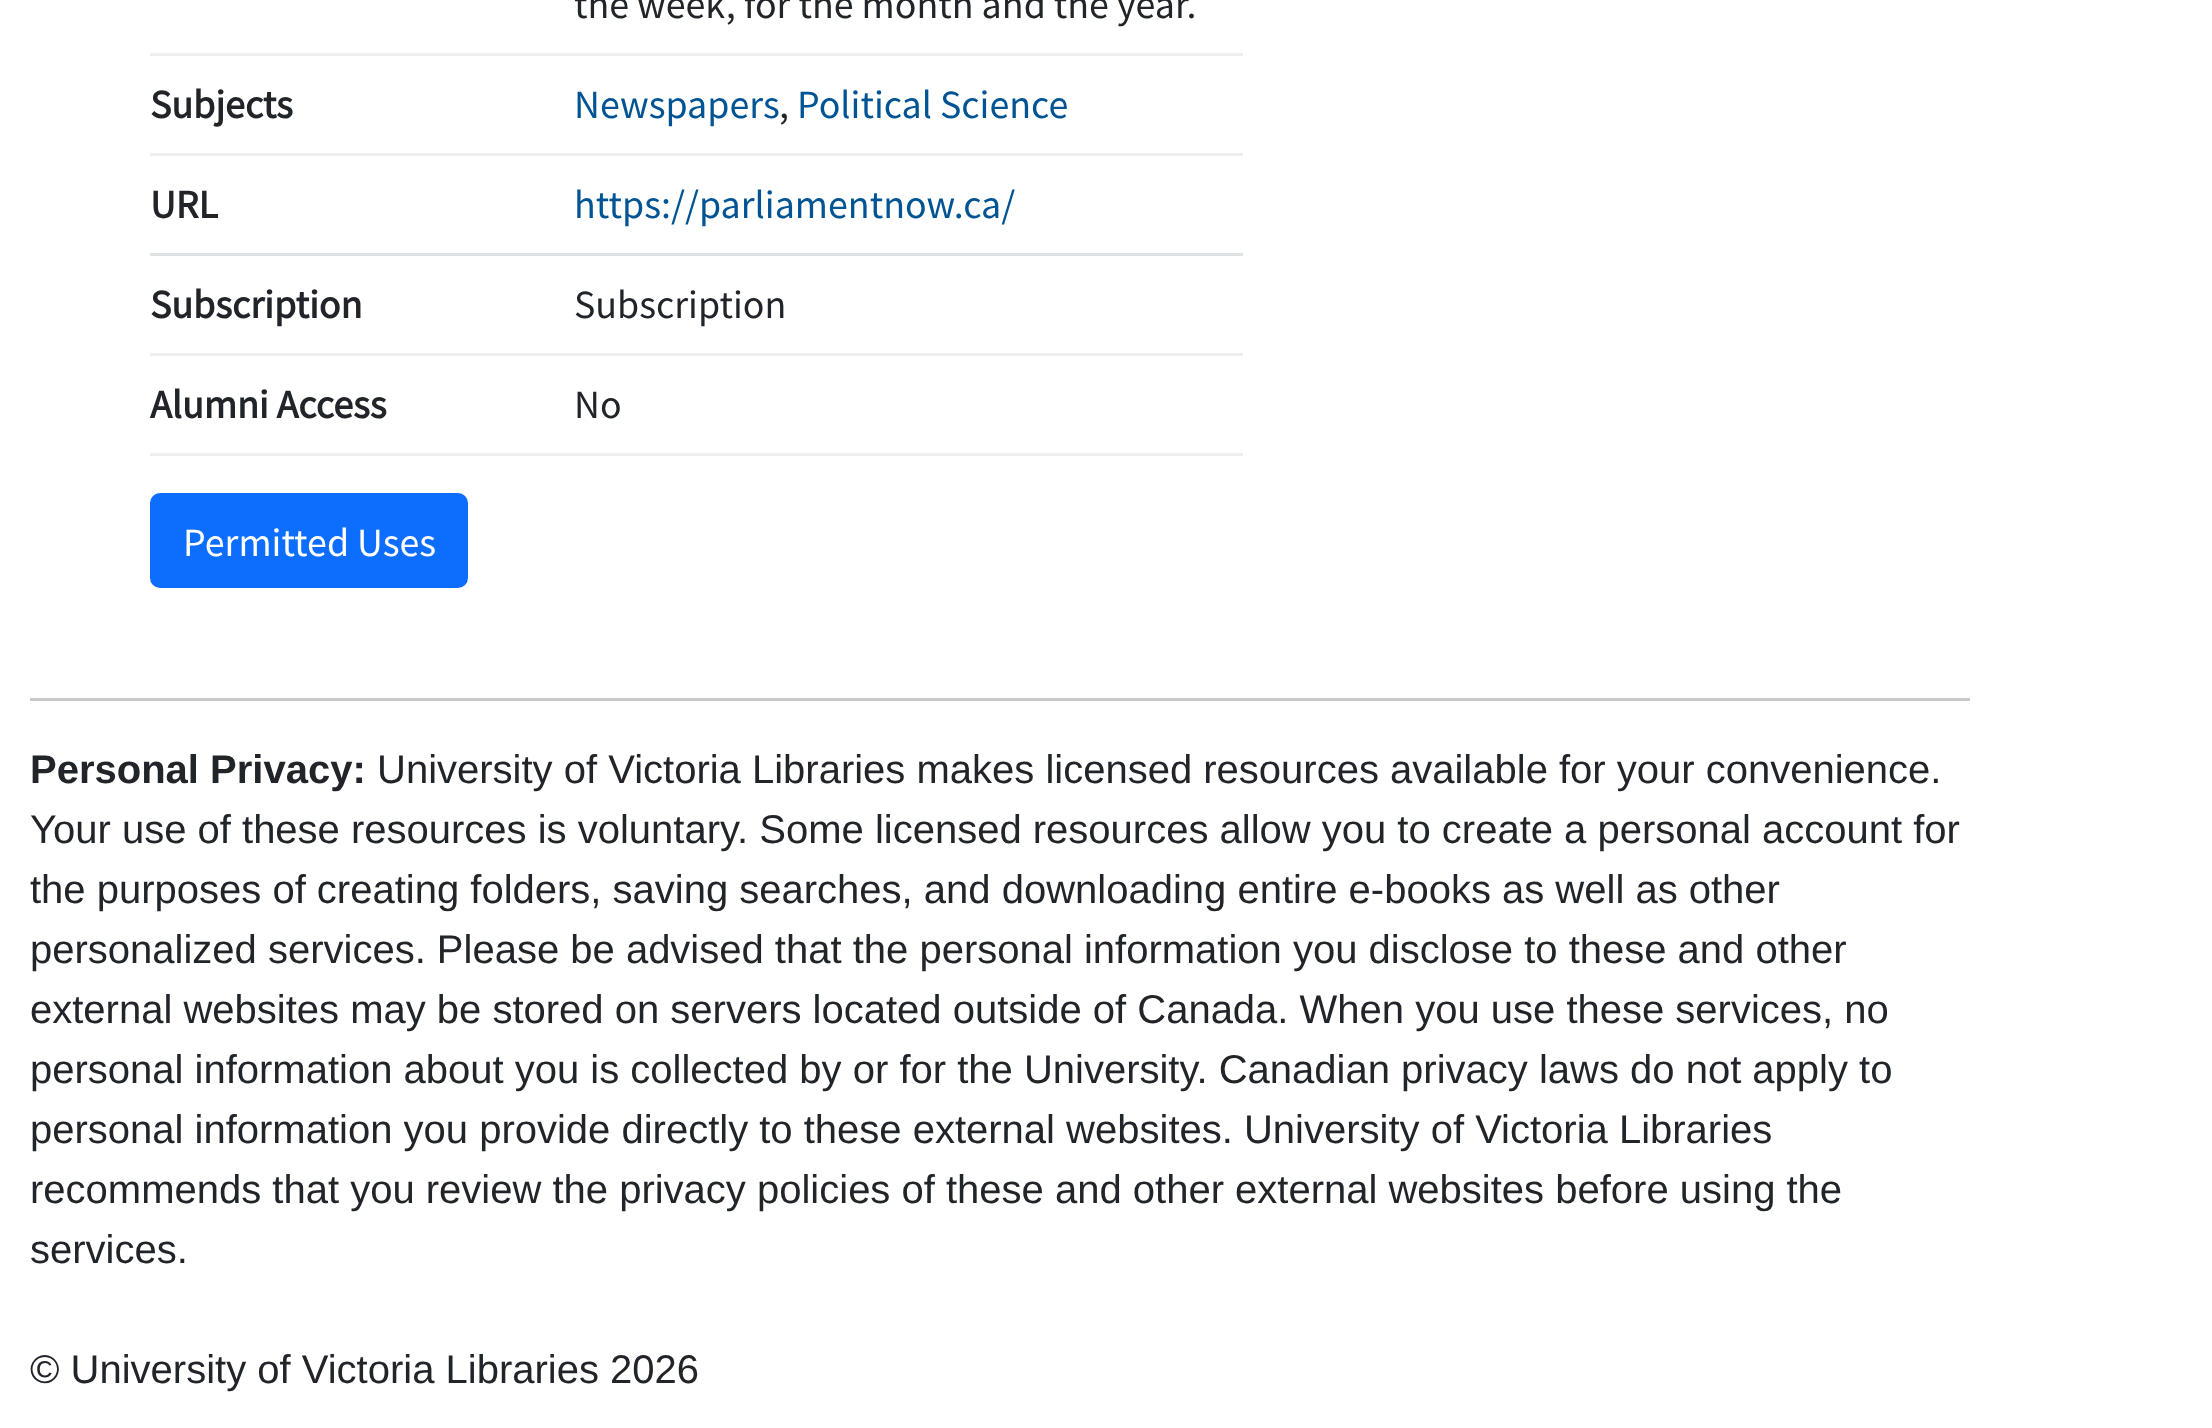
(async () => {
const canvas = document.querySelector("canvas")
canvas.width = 2212
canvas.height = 1428
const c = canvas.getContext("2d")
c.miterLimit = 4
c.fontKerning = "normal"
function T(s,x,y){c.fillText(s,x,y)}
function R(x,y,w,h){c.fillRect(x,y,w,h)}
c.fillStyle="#fff"
R(0,0,2212,1428)
c.fillStyle="#eee"
R(150,53,1093,3)
c.font="40px Source Sans Pro"
c.fillStyle="#212529"
T("the week, for the month and the year.",574,18)
c.font="bold 40px Source Sans Pro"
T("Subjects",150,118)
c.fillStyle="#eee"
R(150,153,1093,3)
c.font="40px Source Sans Pro"
c.fillStyle="#005493"
T("Newspapers",574,118)
c.fillStyle="#212529"
T(",",779,118)
c.fillStyle="#005493"
T("Political Science",797,118)
c.font="bold 40px Source Sans Pro"
c.fillStyle="#212529"
T("URL",150,218)
c.fillStyle="#dee2e6"
R(150,253,1093,3)
c.font="40px Source Sans Pro"
c.fillStyle="#005493"
T("https://parliamentnow.ca/",574,218)
c.font="bold 40px Source Sans Pro"
c.fillStyle="#212529"
T("Subscription",150,318)
c.fillStyle="#eee"
R(150,353,1093,3)
c.font="40px Source Sans Pro"
c.fillStyle="#212529"
T("Subscription",574,318)
c.font="bold 40px Source Sans Pro"
T("Alumni Access",150,418)
c.fillStyle="#eee"
R(150,453,1093,3)
c.font="40px Source Sans Pro"
c.fillStyle="#212529"
T("No",574,418)
c.fillStyle="#0d6efd"
c.beginPath()
c.roundRect(151.5,494.5,315,92,8.5)
c.fill()
c.strokeStyle="#0d6efd"
c.lineWidth=3
c.stroke()
c.fillStyle="#fff"
T("Permitted Uses",183,556)
c.fillStyle="#c8c9ca"
R(30,698,1940,3)
c.font="bold 40px Liberation Sans"
c.fillStyle="#212529"
T("Personal Privacy:",30,783)
c.font="40px Liberation Sans"
T("University of Victoria Libraries makes licensed resources available for your convenience.",377,783)
T("Your use of these resources is voluntary. Some licensed resources allow you to create a personal account for",30,843)
T("the purposes of creating folders, saving searches, and downloading entire e-books as well as other",30,903)
T("personalized services. Please be advised that the personal information you disclose to these and other",30,963)
T("external websites may be stored on servers located outside of Canada. When you use these services, no",30,1023)
T("personal information about you is collected by or for the University. Canadian privacy laws do not apply to",30,1083)
T("personal information you provide directly to these external websites. University of Victoria Libraries",30,1143)
T("recommends that you review the privacy policies of these and other external websites before using the",30,1203)
T("services.",30,1263)
T("© University of Victoria Libraries 2026",30,1383)
})()
